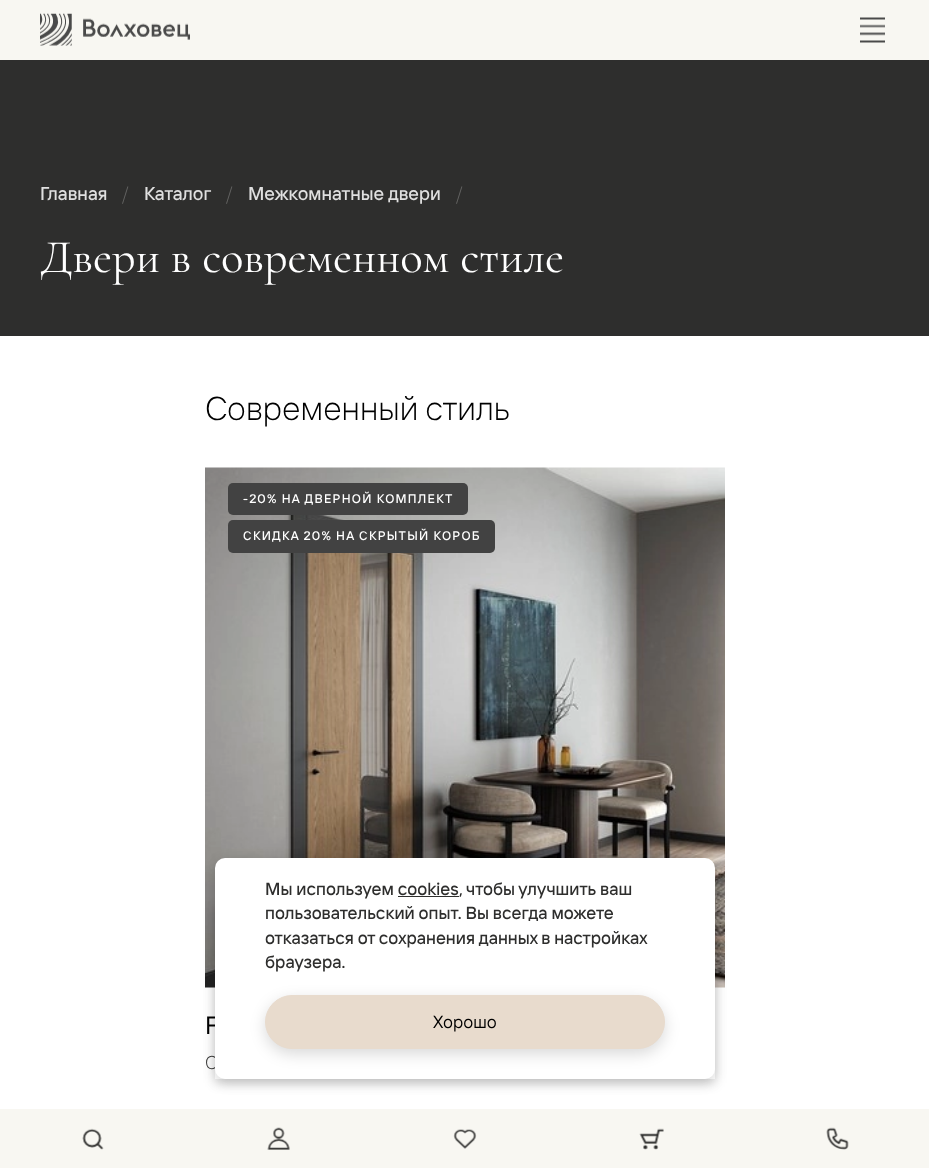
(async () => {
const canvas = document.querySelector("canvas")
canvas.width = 929
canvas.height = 1168
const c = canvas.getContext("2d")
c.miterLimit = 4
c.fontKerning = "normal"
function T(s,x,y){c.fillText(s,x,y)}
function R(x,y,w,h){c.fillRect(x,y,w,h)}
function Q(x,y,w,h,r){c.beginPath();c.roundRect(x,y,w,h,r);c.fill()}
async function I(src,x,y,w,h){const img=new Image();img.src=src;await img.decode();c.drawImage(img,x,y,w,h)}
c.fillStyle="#fff"
R(0,0,929,1168)
c.fillStyle="#f8f7f2"
R(0,0,929,60)
await I("1.png",40,13,150,33)
await I("2.png",860,17,25,26)
await I("3.png",205,467,520,521)
c.fillStyle="#00000026"
c.filter="blur(6px)"
c.beginPath()
c.rect(215,908,500,175)
c.fill()
c.filter="none"
c.font="300 18.6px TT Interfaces"
c.fillStyle="#3c3c3b"
T("С",205,1069)
c.fillStyle="#fff"
R(215,1069,500,10)
c.fillStyle="#2e2e2d"
R(0,60,929,276)
c.font="500 18.6px TT Interfaces"
c.fillStyle="#e0e0e0"
T("Главная",40,200)
c.font="300 18.6px TT Interfaces"
c.fillStyle="#646463"
T("/",122,200)
c.font="500 18.6px TT Interfaces"
c.fillStyle="#e0e0e0"
T("Каталог",144,200)
c.font="300 18.6px TT Interfaces"
c.fillStyle="#646463"
T("/",226,200)
c.font="500 18.6px TT Interfaces"
c.fillStyle="#e0e0e0"
T("Межкомнатные двери",248,200)
c.font="300 18.6px TT Interfaces"
c.fillStyle="#646463"
T("/",456,200)
c.font="46.75px Cormorant"
c.fillStyle="#fff"
T("Двери в современном стиле",40,272)
c.font="300 33px TT Interfaces"
c.fillStyle="#000"
T("Современный стиль",205,420)
c.fillStyle="#424242"
Q(228,483,240,32,5)
c.letterSpacing="1.25px"
c.font="500 12.5px TT Interfaces"
c.fillStyle="#fff"
T("-20% НА ДВЕРНОЙ КОМПЛЕКТ",243,503)
c.fillStyle="#424242"
Q(228,520,267,33,5)
c.fillStyle="#fff"
T("СКИДКА 20% НА СКРЫТЫЙ КОРОБ",243,540)
c.letterSpacing="0px"
c.font="25px TT Interfaces"
c.fillStyle="#000"
T("F",205,1034)
c.fillStyle="#00000026"
c.filter="blur(6px)"
c.beginPath()
c.roundRect(215,861,500,222,10)
c.fill()
c.filter="none"
c.fillStyle="#fff"
Q(215,858,500,221,10)
c.font="500 17.5px TT Interfaces"
c.fillStyle="#2e2e2d"
T("Мы используем cookies",265,895)
T(", чтобы улучшить ваш",459,895)
R(398,896,61,1)
T("пользовательский опыт. Вы всегда можете",265,919)
T("отказаться от сохранения данных в настройках",265,944)
T("браузера.",265,968)
c.fillStyle="#00000026"
c.filter="blur(7.5px)"
c.beginPath()
c.roundRect(265,1000,400,54,27)
c.fill()
c.filter="none"
c.fillStyle="#e8dbcd"
c.beginPath()
c.roundRect(265.5,995.5,399,53,26.5)
c.fill()
c.strokeStyle="#e8dbcd"
c.stroke()
c.font="17.5px TT Interfaces"
c.fillStyle="#000"
T("Хорошо",433,1028)
c.fillStyle="#f8f7f2"
R(0,1109,929,59)
await I("4.png",82,1128,22,22)
await I("5.png",267,1127,23,23)
await I("6.png",453,1129,24,20)
await I("7.png",639,1128,25,22)
await I("8.png",826,1127,23,23)
})()
